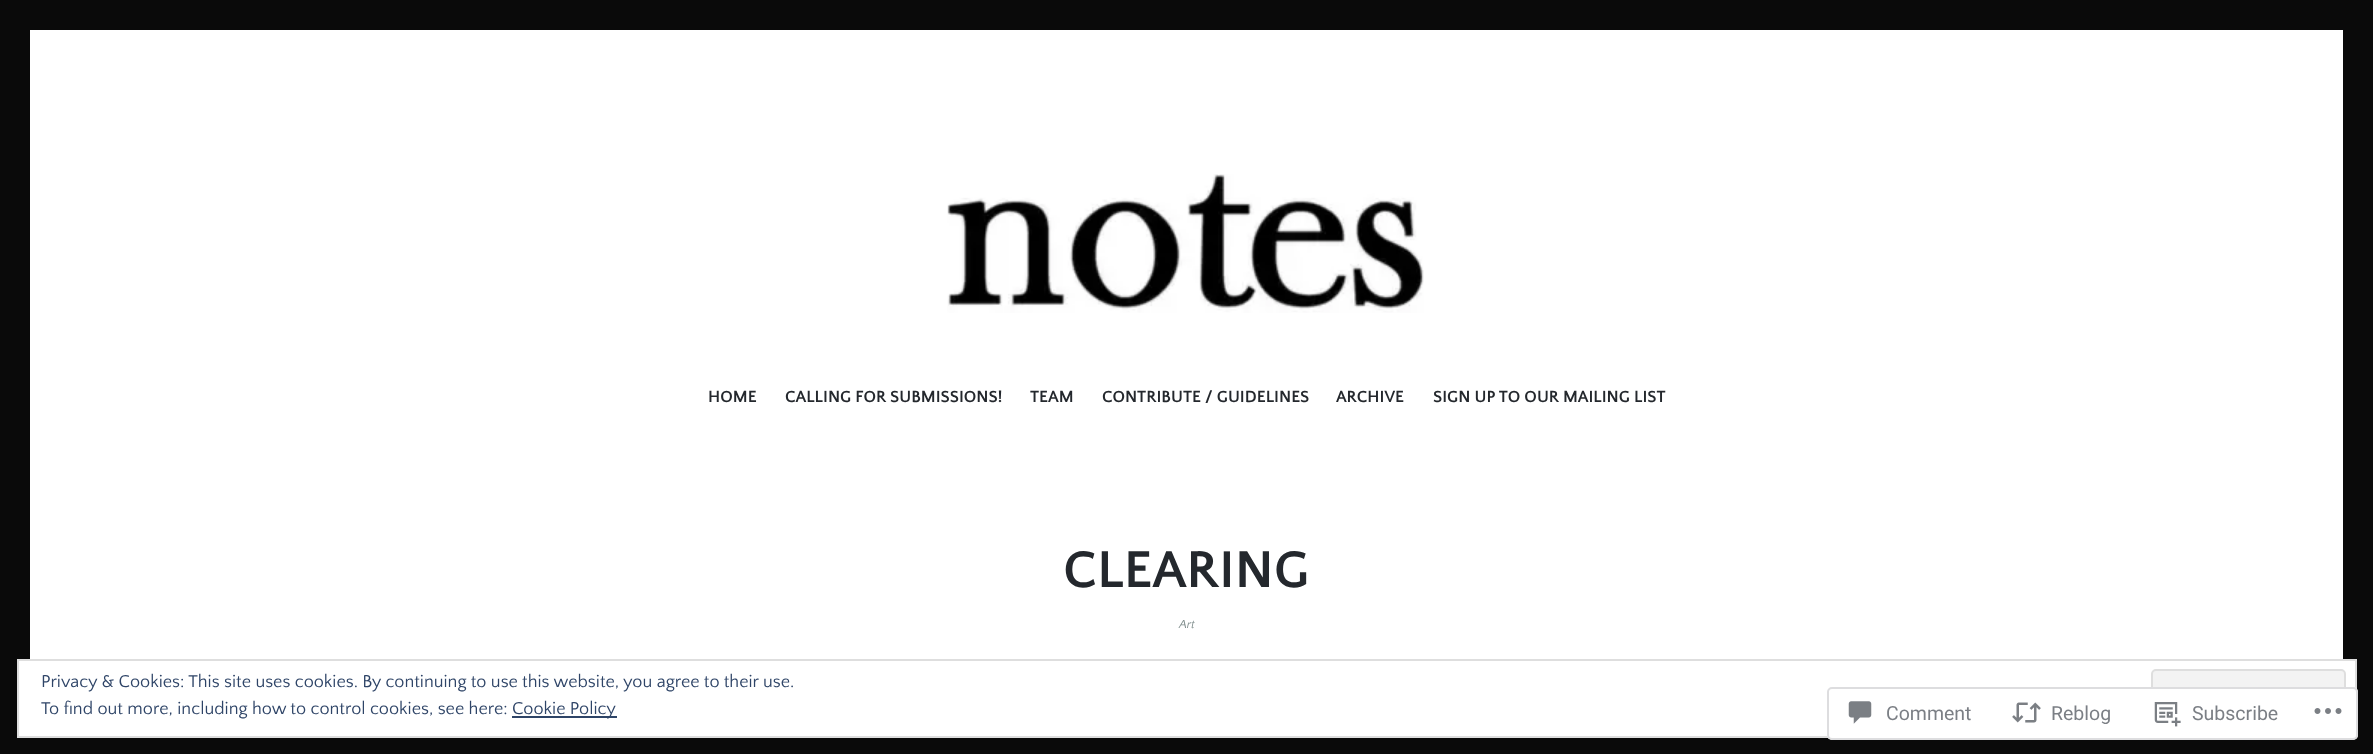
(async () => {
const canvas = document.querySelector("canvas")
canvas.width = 2373
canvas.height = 754
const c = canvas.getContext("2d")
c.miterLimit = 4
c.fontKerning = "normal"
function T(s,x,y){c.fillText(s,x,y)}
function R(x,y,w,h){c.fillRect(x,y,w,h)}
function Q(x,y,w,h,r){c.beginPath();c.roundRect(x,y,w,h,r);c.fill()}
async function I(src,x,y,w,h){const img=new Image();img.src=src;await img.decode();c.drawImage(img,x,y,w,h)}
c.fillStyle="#0a0a0a"
R(0,0,2373,754)
c.fillStyle="#fff"
R(30,30,2313,629)
await I("1.png",947,174,477,139)
c.font="bold 16.9px Quattrocento Sans"
c.fillStyle="#24282d"
T("HOME",708,402)
T("CALLING FOR SUBMISSIONS!",785,402)
T("TEAM",1030,402)
T("CONTRIBUTE / GUIDELINES",1102,402)
T("ARCHIVE",1336,402)
T("SIGN UP TO OUR MAILING LIST",1433,402)
c.font="bold 54px Quattrocento Sans"
T("CLEARING",1063,587)
c.font="italic 12px Quattrocento Sans"
c.fillStyle="#7f8d8c"
T("Art",1179,628)
c.fillStyle="#fff"
c.beginPath()
c.rect(18,660,2338,77)
c.fill()
c.strokeStyle="#dedede"
c.lineWidth=2
c.stroke()
c.font="18px Quattrocento Sans"
c.fillStyle="#2e4467"
T("Privacy & Cookies: This site uses cookies. By continuing to use this website, you agree to their use.",41,687)
c.fillStyle="#f3f3f3"
c.beginPath()
c.roundRect(2152,670,193,57,4)
c.fill()
c.stroke()
c.fillStyle="#2e4467"
T("To find out more, including how to control cookies, see here:",41,714)
R(512,716,105,2)
T("Cookie Policy",512,714)
c.fillStyle="#fffffffa"
Q(1827,687,531,53,5)
c.beginPath()
c.roundRect(1828,688,529,51,4)
c.strokeStyle="#dcdcdefa"
c.stroke()
await I("2.png",1848,701,24,23)
c.font="19.5px Roboto"
c.fillStyle="#7b7f85"
T("Comment",1886,720)
await I("3.png",2012,702,29,21)
T("Reblog",2051,720)
await I("4.png",2154,702,27,25)
T("Subscribe",2192,720)
await I("5.png",2314,708,28,6)
})()
